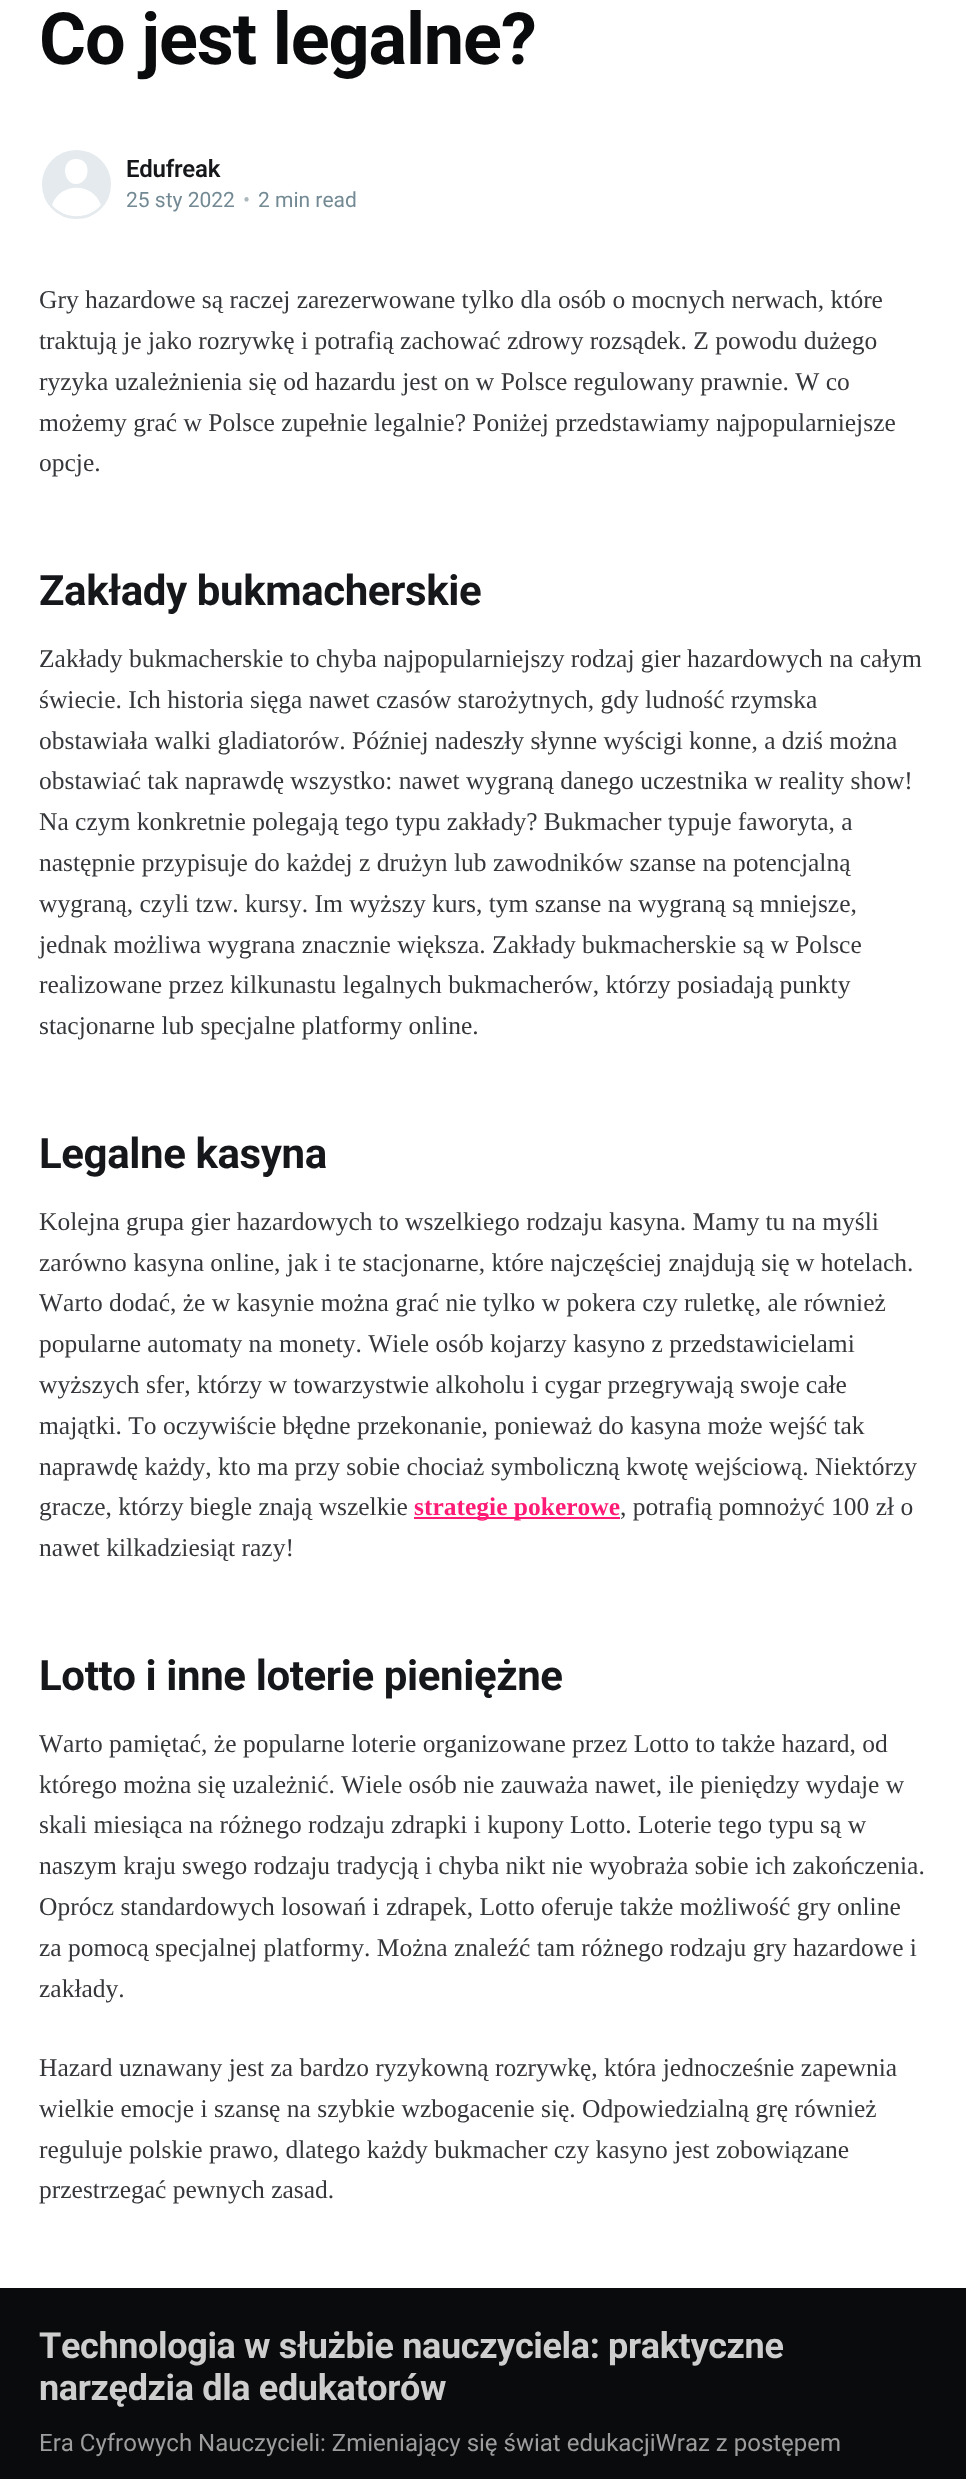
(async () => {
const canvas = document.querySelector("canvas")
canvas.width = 966
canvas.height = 2479
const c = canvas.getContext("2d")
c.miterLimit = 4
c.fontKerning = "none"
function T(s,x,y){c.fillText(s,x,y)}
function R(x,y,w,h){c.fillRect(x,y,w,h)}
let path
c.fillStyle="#fff"
R(0,0,966,2479)
c.letterSpacing="-1.1px"
c.font="bold 72px Roboto"
c.fillStyle="#0a0b0c"
T("Co jest legalne?",39,64)
c.fillStyle="#e4eaed"
c.beginPath()
c.arc(76.5,184.5,36,0,7)
c.fill()
c.strokeStyle="#fff"
c.lineWidth=3
c.stroke()
c.fillStyle="#fff"
path = new Path2D("M52 205c8-23 41-23 49 0c-13 15-36 15-49 0zm24-21c14 0 17-25 0-25c-16 0-13 25 0 25z")
c.fill(path,"evenodd")
c.letterSpacing="-0.25px"
c.font="600 24px Roboto"
c.fillStyle="#15171a"
T("Edufreak",126,177)
c.letterSpacing="0px"
c.font="21px Roboto"
c.fillStyle="#738a94"
T("25 sty 2022",126,207)
c.fillStyle="#abb9bf"
T("•",243,207)
c.fillStyle="#738a94"
T("2 min read",258,207)
c.font="25.5px Liberation Serif"
c.fillStyle="#35373a"
T("Gry hazardowe są raczej zarezerwowane tylko dla osób o mocnych nerwach, które",39,308)
T("traktują je jako rozrywkę i potrafią zachować zdrowy rozsądek. Z powodu dużego",39,349)
T("ryzyka uzależnienia się od hazardu jest on w Polsce regulowany prawnie. W co",39,390)
T("możemy grać w Polsce zupełnie legalnie? Poniżej przedstawiamy najpopularniejsze",39,431)
T("opcje.",39,471)
c.letterSpacing="-0.4px"
c.font="bold 42px Roboto"
c.fillStyle="#15171a"
T("Zakłady bukmacherskie",39,605)
c.letterSpacing="0px"
c.font="25.5px Liberation Serif"
c.fillStyle="#35373a"
T("Zakłady bukmacherskie to chyba najpopularniejszy rodzaj gier hazardowych na całym",39,667)
T("świecie. Ich historia sięga nawet czasów starożytnych, gdy ludność rzymska",39,708)
T("obstawiała walki gladiatorów. Później nadeszły słynne wyścigi konne, a dziś można",39,749)
T("obstawiać tak naprawdę wszystko: nawet wygraną danego uczestnika w reality show!",39,789)
T("Na czym konkretnie polegają tego typu zakłady? Bukmacher typuje faworyta, a",39,830)
T("następnie przypisuje do każdej z drużyn lub zawodników szanse na potencjalną",39,871)
T("wygraną, czyli tzw. kursy. Im wyższy kurs, tym szanse na wygraną są mniejsze,",39,912)
T("jednak możliwa wygrana znacznie większa. Zakłady bukmacherskie są w Polsce",39,953)
T("realizowane przez kilkunastu legalnych bukmacherów, którzy posiadają punkty",39,993)
T("stacjonarne lub specjalne platformy online.",39,1034)
c.letterSpacing="-0.4px"
c.font="bold 42px Roboto"
c.fillStyle="#15171a"
T("Legalne kasyna",39,1168)
c.letterSpacing="0px"
c.font="25.5px Liberation Serif"
c.fillStyle="#35373a"
T("Kolejna grupa gier hazardowych to wszelkiego rodzaju kasyna. Mamy tu na myśli",39,1230)
T("zarówno kasyna online, jak i te stacjonarne, które najczęściej znajdują się w hotelach.",39,1271)
T("Warto dodać, że w kasynie można grać nie tylko w pokera czy ruletkę, ale również",39,1311)
T("popularne automaty na monety. Wiele osób kojarzy kasyno z przedstawicielami",39,1352)
T("wyższych sfer, którzy w towarzystwie alkoholu i cygar przegrywają swoje całe",39,1393)
T("majątki. To oczywiście błędne przekonanie, ponieważ do kasyna może wejść tak",39,1434)
T("naprawdę każdy, kto ma przy sobie chociaż symboliczną kwotę wejściową. Niektórzy",39,1475)
T("gracze, którzy biegle znają wszelkie",39,1515)
c.fillStyle="#ff1a75"
R(414,1517,206,2)
c.font="bold 25.5px Liberation Serif"
T("strategie pokerowe",414,1515)
c.font="25.5px Liberation Serif"
c.fillStyle="#35373a"
T(", potrafią pomnożyć 100 zł o",620,1515)
T("nawet kilkadziesiąt razy!",39,1556)
c.letterSpacing="-0.4px"
c.font="bold 42px Roboto"
c.fillStyle="#15171a"
T("Lotto i inne loterie pieniężne",39,1690)
c.letterSpacing="0px"
c.font="25.5px Liberation Serif"
c.fillStyle="#35373a"
T("Warto pamiętać, że popularne loterie organizowane przez Lotto to także hazard, od",39,1752)
T("którego można się uzależnić. Wiele osób nie zauważa nawet, ile pieniędzy wydaje w",39,1793)
T("skali miesiąca na różnego rodzaju zdrapki i kupony Lotto. Loterie tego typu są w",39,1833)
T("naszym kraju swego rodzaju tradycją i chyba nikt nie wyobraża sobie ich zakończenia.",39,1874)
T("Oprócz standardowych losowań i zdrapek, Lotto oferuje także możliwość gry online",39,1915)
T("za pomocą specjalnej platformy. Można znaleźć tam różnego rodzaju gry hazardowe i",39,1956)
T("zakłady.",39,1997)
T("Hazard uznawany jest za bardzo ryzykowną rozrywkę, która jednocześnie zapewnia",39,2076)
T("wielkie emocje i szansę na szybkie wzbogacenie się. Odpowiedzialną grę również",39,2117)
T("reguluje polskie prawo, dlatego każdy bukmacher czy kasyno jest zobowiązane",39,2158)
T("przestrzegać pewnych zasad.",39,2198)
c.fillStyle="#0a0b0c"
R(0,2288,966,191)
c.letterSpacing="-0.35px"
c.font="bold 36px Roboto"
c.fillStyle="#cecece"
T("Technologia w służbie nauczyciela: praktyczne",39,2358)
T("narzędzia dla edukatorów",39,2400)
c.letterSpacing="0px"
c.font="24px Roboto"
c.fillStyle="#9d9d9e"
T("Era Cyfrowych Nauczycieli: Zmieniający się świat edukacjiWraz z postępem",39,2451)
})()
